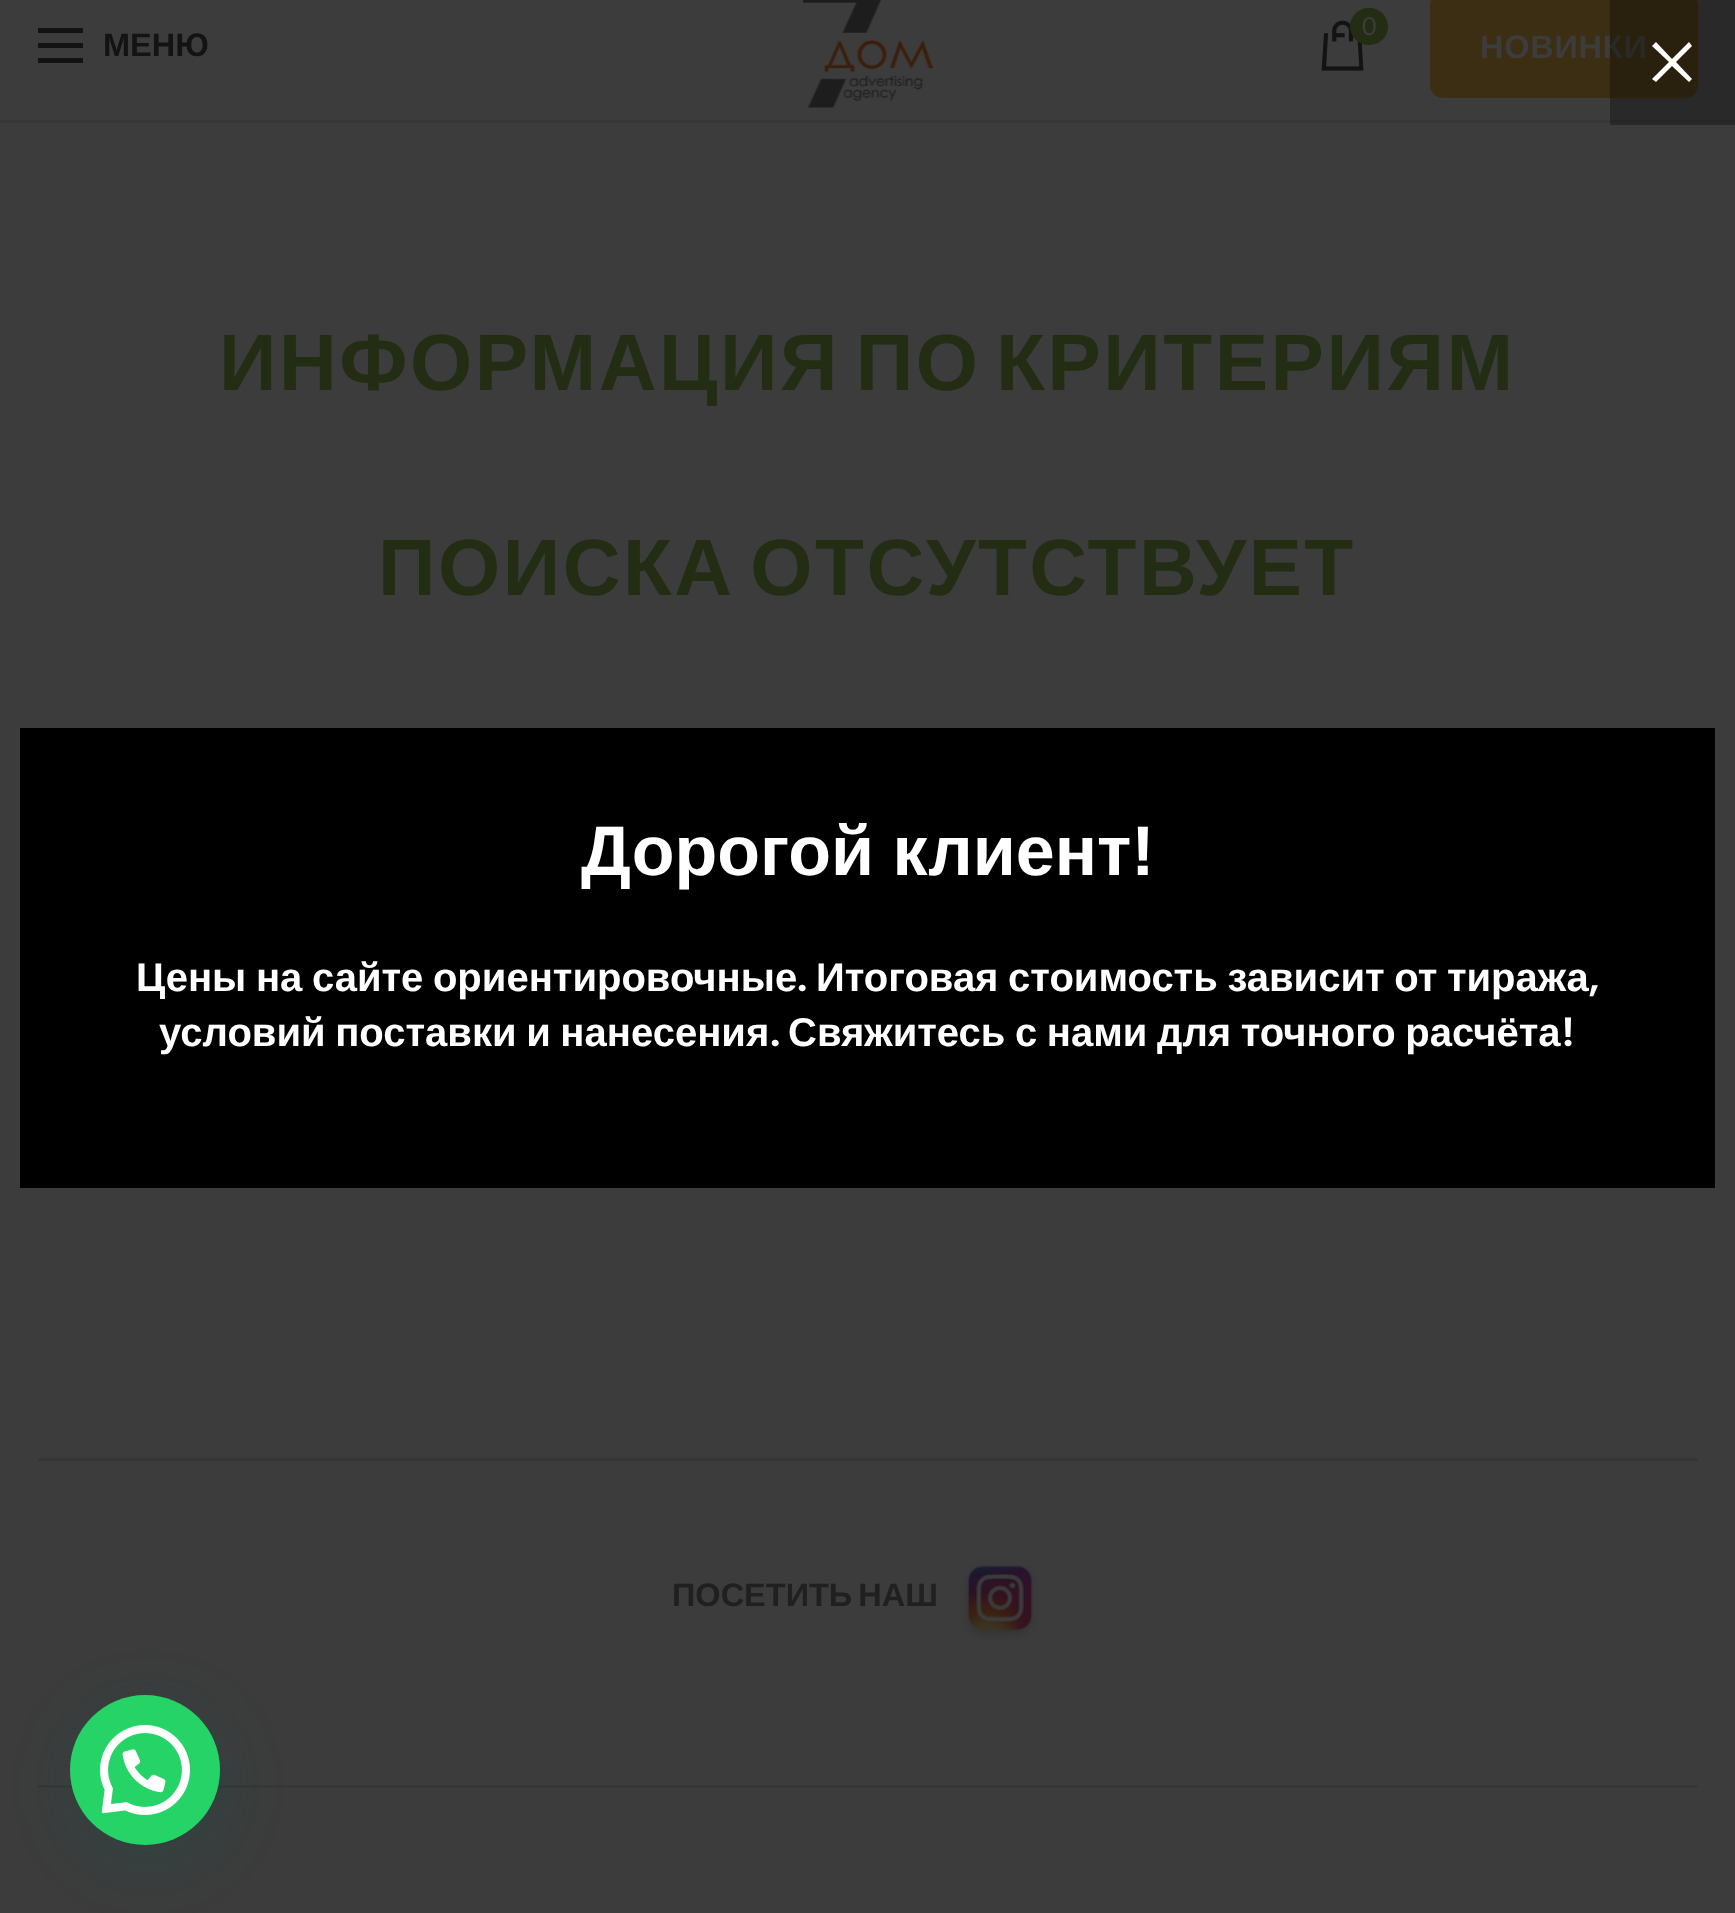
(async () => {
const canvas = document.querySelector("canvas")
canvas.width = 1735
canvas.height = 1913
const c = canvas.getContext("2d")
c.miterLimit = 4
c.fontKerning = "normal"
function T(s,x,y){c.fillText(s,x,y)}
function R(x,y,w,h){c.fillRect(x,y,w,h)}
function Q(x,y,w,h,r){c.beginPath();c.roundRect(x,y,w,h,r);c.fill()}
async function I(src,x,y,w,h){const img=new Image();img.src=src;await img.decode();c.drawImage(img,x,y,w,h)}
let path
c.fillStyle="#3c3c3c"
R(0,0,1735,1913)
c.fillStyle="#373737"
R(0,120,1735,3)
c.fillStyle="#131313"
R(38,43,45,5)
R(38,28,45,5)
R(38,58,45,5)
c.font="bold 32.5px Liberation Sans"
T("МЕНЮ",103,56)
await I("1.png",803,0,130,108)
await I("2.png",1321,20,43,51)
c.fillStyle="#232d13"
Q(1350,8,38,37,18.5)
c.font="25px Lato"
c.fillStyle="#3c3c3c"
T("0",1362,35)
c.fillStyle="#3b2e13"
Q(1430,-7,268,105,13)
c.letterSpacing="0.75px"
c.font="bold 32.5px Liberation Sans"
c.fillStyle="#3c3c3c"
T("НОВИНКИ",1480,58)
c.letterSpacing="2.5px"
c.wordSpacing="-9px"
c.font="bold 80px Liberation Sans"
c.fillStyle="#232d13"
T("ИНФОРМАЦИЯ ПО КРИТЕРИЯМ",219,390)
T("ПОИСКА ОТСУТСТВУЕТ",378,595)
c.fillStyle="#373737"
R(38,1458,1660,3)
R(38,1785,1660,3)
c.letterSpacing="0px"
c.wordSpacing="-3px"
c.font="bold 32.5px Liberation Sans"
c.fillStyle="#202020"
T("ПОСЕТИТЬ НАШ",672,1606)
await I("3.png",962,1564,77,78)
c.fillStyle="#000"
R(20,728,1695,460)
c.fillStyle="#0000004d"
R(1610,0,125,125)
c.fillStyle="#fff"
path = new Path2D("M1692 46l-16 16l16 17l-3 3l-17-16l-16 16l-4-3l17-17l-17-16l4-4l16 17l17-17z")
c.fill(path)
c.wordSpacing="-1px"
c.font="bold 70px Liberation Sans"
T("Дорогой клиент!",581,875)
c.wordSpacing="-1.5px"
c.font="bold 40px Liberation Sans"
T("Цены на сайте ориентировочные",136,991)
c.wordSpacing="0px"
c.font="600 40px Poppins"
T(".",797,991)
c.wordSpacing="-1.5px"
c.font="bold 40px Liberation Sans"
T("Итоговая стоимость зависит от тиража",816,991)
c.wordSpacing="0px"
c.font="600 40px Poppins"
T(",",1589,991)
c.wordSpacing="-1.5px"
c.font="bold 40px Liberation Sans"
T("условий поставки и нанесения",159,1046)
c.wordSpacing="0px"
c.font="600 40px Poppins"
T(".",770,1046)
c.wordSpacing="-1.5px"
c.font="bold 40px Liberation Sans"
T("Свяжитесь с нами для точного расчёта",788,1046)
c.wordSpacing="0px"
c.font="600 40px Poppins"
T("!",1561,1046)
c.fillStyle="#075e543d"
c.filter="blur(30px)"
c.beginPath()
c.roundRect(73,1710,150,150,75)
c.fill()
c.filter="none"
c.fillStyle="#25d366"
c.beginPath()
c.arc(145,1770,75,0,7)
c.fill()
await I("4.png",100,1725,90,90)
})()
